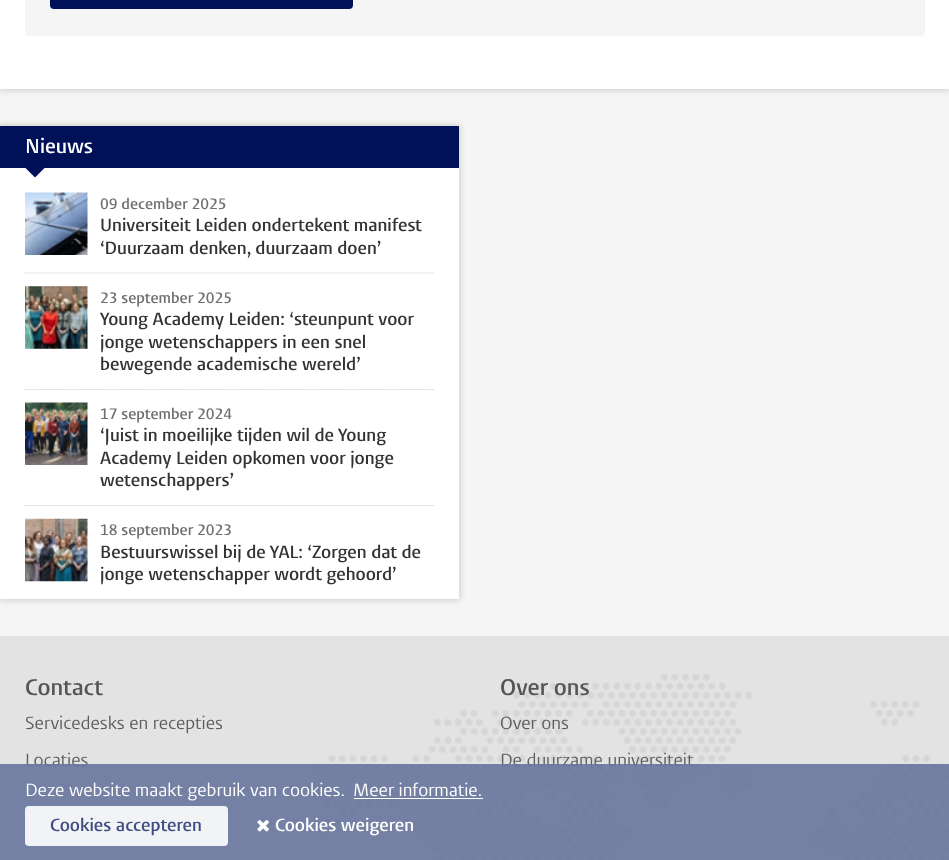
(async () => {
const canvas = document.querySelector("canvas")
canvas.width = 949
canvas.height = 860
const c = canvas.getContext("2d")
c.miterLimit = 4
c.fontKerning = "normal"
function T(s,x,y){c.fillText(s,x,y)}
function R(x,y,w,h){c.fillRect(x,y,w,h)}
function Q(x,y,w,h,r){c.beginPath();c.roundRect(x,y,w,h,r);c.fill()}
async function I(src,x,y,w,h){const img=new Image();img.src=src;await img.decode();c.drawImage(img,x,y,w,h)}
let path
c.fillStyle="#f5f5f5"
R(0,0,949,860)
c.fillStyle="#786e644d"
c.filter="blur(3px)"
c.beginPath()
c.rect(-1,-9,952,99)
c.fill()
c.filter="none"
c.fillStyle="#fff"
R(0,0,949,89)
c.fillStyle="#f5f5f5"
Q(25,-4,900,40,4)
c.fillStyle="#001158"
Q(50,-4,303,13,4)
c.fillStyle="#786e644d"
c.filter="blur(3px)"
c.beginPath()
c.rect(-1,125,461,475)
c.fill()
c.filter="none"
c.fillStyle="#fff"
R(0,168,459,431)
c.fillStyle="#001158"
R(0,126,459,42)
c.font="600 20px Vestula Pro"
c.fillStyle="#fff"
T("Nieuws",25,153)
c.fillStyle="#001158"
path = new Path2D("M25 167.5h20l-10 10z")
c.fill(path)
await I("1.png",25,192,63,63)
c.font="600 15px Vestula Pro"
c.fillStyle="#707070"
T("09 december 2025",100,209)
c.font="600 17.5px Vestula Pro"
c.fillStyle="#333"
T("Universiteit Leiden ondertekent manifest",100,231)
T("‘Duurzaam denken, duurzaam doen’",100,254)
path = new Path2D("M25 273h409")
c.strokeStyle="#ccc"
c.lineWidth=1.2
c.setLineDash([1.25,1.25])
c.stroke(path)
await I("2.png",25,286,63,63)
c.font="600 15px Vestula Pro"
c.fillStyle="#707070"
T("23 september 2025",100,303)
c.font="600 17.5px Vestula Pro"
c.fillStyle="#333"
T("Young Academy Leiden: ‘steunpunt voor",100,325)
T("jonge wetenschappers in een snel",100,348)
T("bewegende academische wereld’",100,370)
path = new Path2D("M25 389.5h409")
c.stroke(path)
await I("3.png",25,402,63,63)
c.font="600 15px Vestula Pro"
c.fillStyle="#707070"
T("17 september 2024",100,419)
c.font="600 17.5px Vestula Pro"
c.fillStyle="#333"
T("‘Juist in moeilijke tijden wil de Young",100,441)
T("Academy Leiden opkomen voor jonge",100,464)
T("wetenschappers’",100,486)
path = new Path2D("M25 505.5h409")
c.stroke(path)
await I("4.png",25,518,63,64)
c.font="600 15px Vestula Pro"
c.fillStyle="#707070"
T("18 september 2023",100,535)
c.font="600 17.5px Vestula Pro"
c.fillStyle="#333"
T("Bestuurswissel bij de YAL: ‘Zorgen dat de",100,558)
T("jonge wetenschapper wordt gehoord’",100,580)
c.fillStyle="#e3e3e3"
R(0,636,949,224)
await I("5.png",312,674,637,186)
c.font="600 22.5px Vestula Pro"
c.fillStyle="#555"
T("Contact",25,695)
c.font="17.5px Vestula Pro"
c.fillStyle="#5e5e5e"
T("Servicedesks en recepties",25,729)
T("Locaties",25,766)
c.font="600 22.5px Vestula Pro"
c.fillStyle="#555"
T("Over ons",500,695)
c.font="17.5px Vestula Pro"
c.fillStyle="#5e5e5e"
T("Over ons",500,729)
T("De duurzame universiteit",500,766)
c.fillStyle="#68769ce6"
R(0,764,949,96)
c.fillStyle="#fff"
T("Deze website maakt gebruik van cookies.",25,796)
T("Meer informatie.",353,796)
R(354,798,129,1)
c.fillStyle="#ffffffe6"
Q(25,806,203,40,4)
c.font="600 17.5px Vestula Pro"
c.fillStyle="#404d82"
T("Cookies accepteren",50,831)
await I("6.png",257,820,12,12)
c.fillStyle="#fff"
T("Cookies weigeren",275,831)
})()
